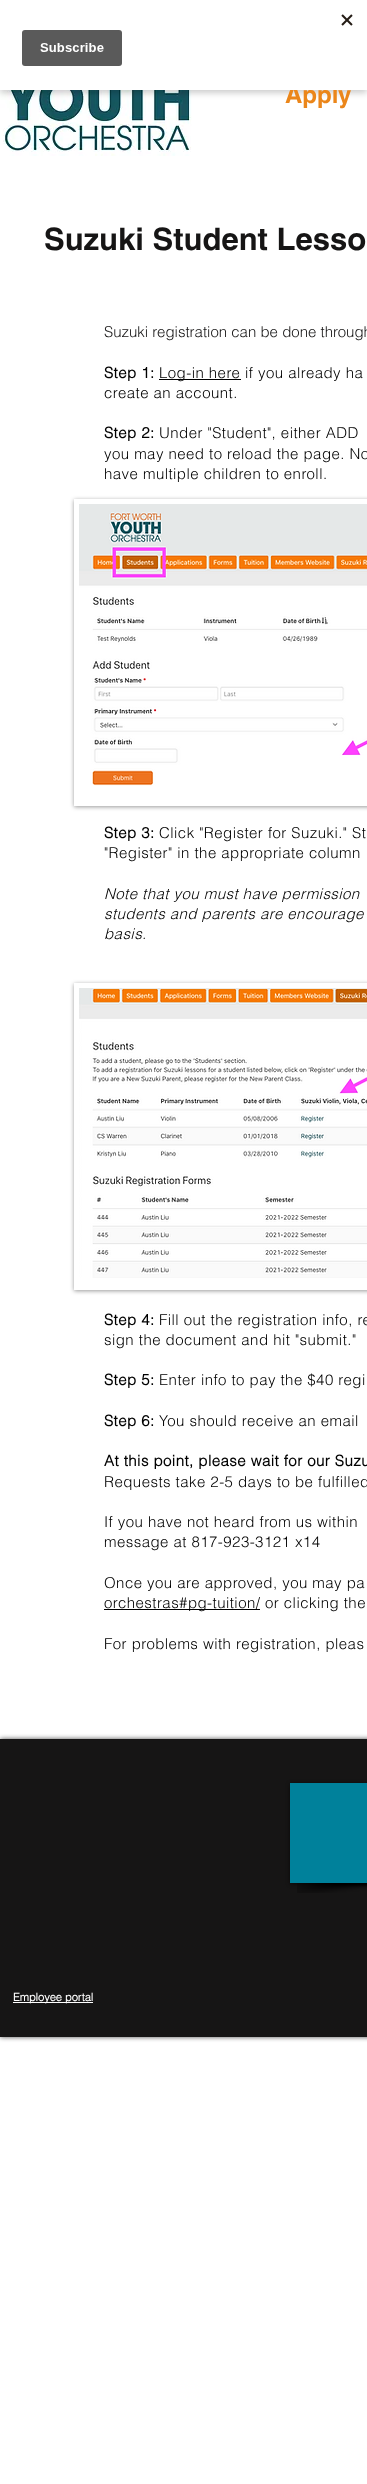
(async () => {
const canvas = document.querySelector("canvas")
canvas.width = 367
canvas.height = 2484
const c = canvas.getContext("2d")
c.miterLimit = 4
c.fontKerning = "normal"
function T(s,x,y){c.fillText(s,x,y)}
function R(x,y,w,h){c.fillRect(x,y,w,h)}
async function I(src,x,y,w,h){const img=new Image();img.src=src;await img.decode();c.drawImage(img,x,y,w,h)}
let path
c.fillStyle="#fff"
R(0,0,367,2484)
await I("2.png",0,90,192,66)
c.fillStyle="#00000033"
c.filter="blur(3px)"
c.beginPath()
c.rect(0,3,367,90)
c.fill()
c.filter="none"
c.font="bold 24px helvetica"
c.fillStyle="#eb861a"
T("Apply",285,103)
c.fillStyle="#fff"
R(0,0,367,90)
await I("1.png",22,14,331,52)
c.font="bold 31px helvetica"
c.fillStyle="#161515"
T("Suzuki Student Lesso",44,250)
c.font="300 15px helvetica"
T("Suzuki registration can be done through",104,337)
c.letterSpacing="0.45px"
c.font="bold 15px 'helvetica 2'"
c.fillStyle="#000"
T("Step 1:",104,378)
R(159,379,82,1)
c.font="300 15px helvetica"
T("Log-in here if you already ha",159,378)
T("create an account.",104,398)
c.font="bold 15px 'helvetica 2'"
T("Step 2:",104,438)
c.font="300 15px helvetica"
T("Under \"Student\", either ADD",159,438)
T("you may need to reload the page. No",104,459)
T("have multiple children to enroll.",104,479)
c.save()
path = new Path2D("M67 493h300v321h-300zm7 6h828v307h-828z")
c.clip(path,"evenodd")
c.fillStyle="#00000066"
c.filter="blur(2px)"
c.beginPath()
c.rect(74,500,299,307)
c.fill()
c.filter="none"
c.restore()
await I("3.png",79,504,288,282)
c.font="bold 15px 'helvetica 2'"
T("Step 3:",104,838)
c.font="300 15px helvetica"
T("Click \"Register for Suzuki.\" St",159,838)
T("\"Register\" in the appropriate column",104,858)
c.font="italic 300 15px helvetica"
T("Note that you must have permission",104,899)
T("students and parents are encourage",104,919)
T("basis.",104,939)
c.save()
path = new Path2D("M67 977h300v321h-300zm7 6h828v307h-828z")
c.clip(path,"evenodd")
c.fillStyle="#00000066"
c.filter="blur(2px)"
c.beginPath()
c.rect(74,984,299,307)
c.fill()
c.filter="none"
c.restore()
await I("4.png",79,988,288,290)
c.font="bold 15px 'helvetica 2'"
T("Step 4:",104,1325)
c.font="300 15px helvetica"
T("Fill out the registration info, re",159,1325)
T("sign the document and hit \"submit.\"",104,1345)
c.font="bold 15px 'helvetica 2'"
T("Step 5:",104,1385)
c.font="300 15px helvetica"
T("Enter info to pay the $40 regi",159,1385)
c.font="bold 15px 'helvetica 2'"
T("Step 6:",104,1426)
c.font="300 15px helvetica"
T("You should receive an email",159,1426)
c.font="bold 15px 'helvetica 2'"
T("At this point, please wait for our Suzu",104,1466)
c.font="300 15px helvetica"
T("Requests take 2-5 days to be fulfilled",104,1487)
T("If you have not heard from us within",104,1527)
T("message at 817-923-3121 x14",104,1547)
T("Once you are approved, you may pa",104,1588)
R(104,1609,156,1)
T("orchestras#pg-tuition/ or clicking the",104,1608)
T("For problems with registration, pleas",104,1649)
c.fillStyle="#000000b3"
c.filter="blur(2.5px)"
c.beginPath()
c.rect(0,1739,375,298)
c.fill()
c.filter="none"
c.fillStyle="#161515"
R(0,1739,367,298)
await I("5.png",297,1883,70,10)
c.fillStyle="#00000099"
c.filter="blur(2px)"
c.beginPath()
c.rect(290,1784,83,100)
c.fill()
c.filter="none"
c.fillStyle="#00819b"
R(290,1783,77,100)
c.fillStyle="#fff"
R(13,2002,80,1)
c.letterSpacing="0px"
c.font="bold 11px 'helvetica 2'"
T("Employee portal",13,2001)
})()
